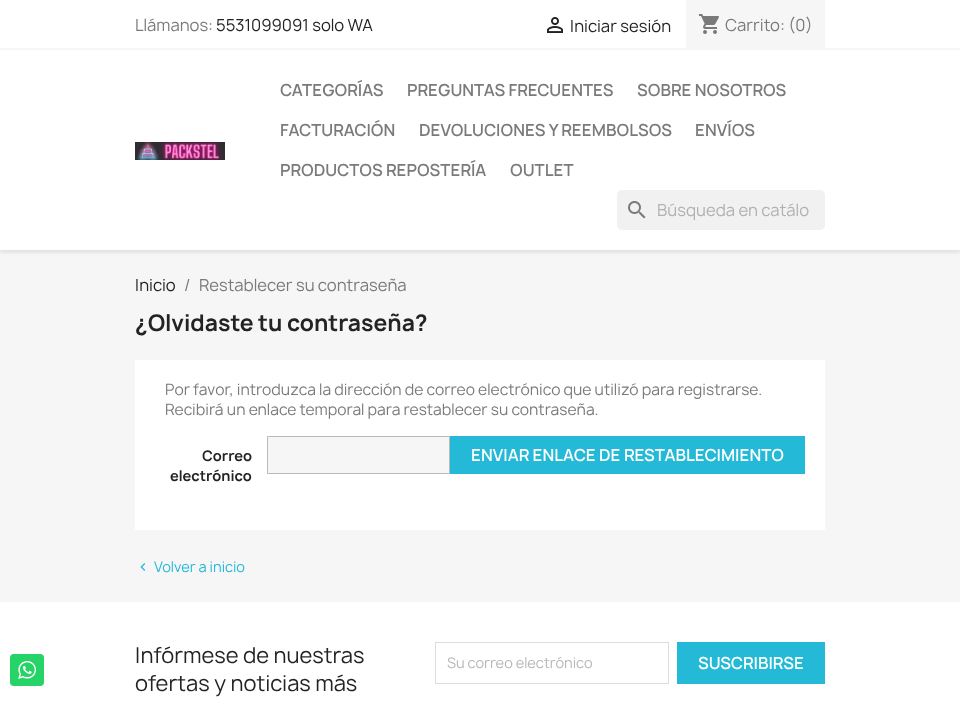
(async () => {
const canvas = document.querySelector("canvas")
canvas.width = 960
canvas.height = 706
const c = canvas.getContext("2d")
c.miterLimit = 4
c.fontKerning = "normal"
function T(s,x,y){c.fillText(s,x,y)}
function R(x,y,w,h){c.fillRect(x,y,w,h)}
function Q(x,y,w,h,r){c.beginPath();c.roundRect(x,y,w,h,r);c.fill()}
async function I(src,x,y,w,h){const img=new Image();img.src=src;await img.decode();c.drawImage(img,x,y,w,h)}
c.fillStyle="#fff"
R(0,0,960,706)
c.fillStyle="#25d366"
Q(10,654,34,32,4)
await I("1.png",18,661,18,18)
c.fillStyle="#f6f6f6"
R(0,250,960,352)
c.save()
c.beginPath()
c.rect(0,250,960,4)
c.clip()
c.fillStyle="#0000001c"
c.filter="blur(2.5px)"
c.beginPath()
c.rect(0,2,960,250)
c.fill()
c.filter="none"
c.restore()
R(0,48,960,2)
c.font="16px Manrope"
c.fillStyle="#7a7a7a"
T("Llámanos:",135,31)
c.fillStyle="#232323"
T("5531099091 solo WA",216,31)
await I("2.png",547,17,16,16)
T("Iniciar sesión",570,32)
c.fillStyle="#f6f6f6"
R(686,0,139,48)
await I("3.png",699,14,20,20)
c.fillStyle="#7a7a7a"
T("Carrito: (0)",725,31)
await I("4.png",135,142,90,18)
c.font="600 16px Manrope"
T("CATEGORÍAS",280,96)
T("PREGUNTAS FRECUENTES",407,96)
T("SOBRE NOSOTROS",637,96)
T("FACTURACIÓN",280,136)
T("DEVOLUCIONES Y REEMBOLSOS",419,136)
T("ENVÍOS",695,136)
T("PRODUCTOS REPOSTERÍA",280,176)
T("OUTLET",510,176)
c.fillStyle="#f1f1f1"
Q(617,190,208,40,5)
await I("5.png",628,201,18,18)
c.font="16px Manrope"
c.fillStyle="#b1b1b1"
T("Búsqueda en catálo",657,216)
c.fillStyle="#232323"
T("Inicio",135,291)
c.fillStyle="#7a7a7a"
T("/",184,291)
T("Restablecer su contraseña",199,291)
c.font="bold 22px Manrope"
c.fillStyle="#232323"
T("¿Olvidaste tu contraseña?",135,331)
c.fillStyle="#fff"
R(135,360,690,170)
c.font="15px Manrope"
c.fillStyle="#7a7a7a"
T("Por favor, introduzca la dirección de correo electrónico que utilizó para registrarse.",165,395)
T("Recibirá un enlace temporal para restablecer su contraseña.",165,415)
c.font="bold 14px Manrope"
c.fillStyle="#232323"
T("Correo",202,461)
T("electrónico",170,481)
c.fillStyle="#f6f6f6"
c.beginPath()
c.rect(267.5,436.5,182,37)
c.fill()
c.strokeStyle="#b9b9b9"
c.stroke()
c.fillStyle="#24b9d7"
R(450,436,355,38)
c.font="600 16px Manrope"
c.fillStyle="#fff"
T("ENVIAR ENLACE DE RESTABLECIMIENTO",471,461)
await I("6.png",140,563,6,8)
c.font="14px Manrope"
c.fillStyle="#24b9d7"
T("Volver a inicio",154,572)
c.font="21px Manrope"
c.fillStyle="#232323"
T("Infórmese de nuestras",135,663)
T("ofertas y noticias más",135,691)
c.strokeStyle="#ddd"
c.strokeRect(435.5,642.5,233,41)
c.font="14px Manrope"
c.fillStyle="#b7b7b7"
T("Su correo electrónico",447,668)
c.fillStyle="#24b9d7"
R(677,642,148,42)
c.font="600 16px Manrope"
c.fillStyle="#fff"
T("SUSCRIBIRSE",698,669)
})()
